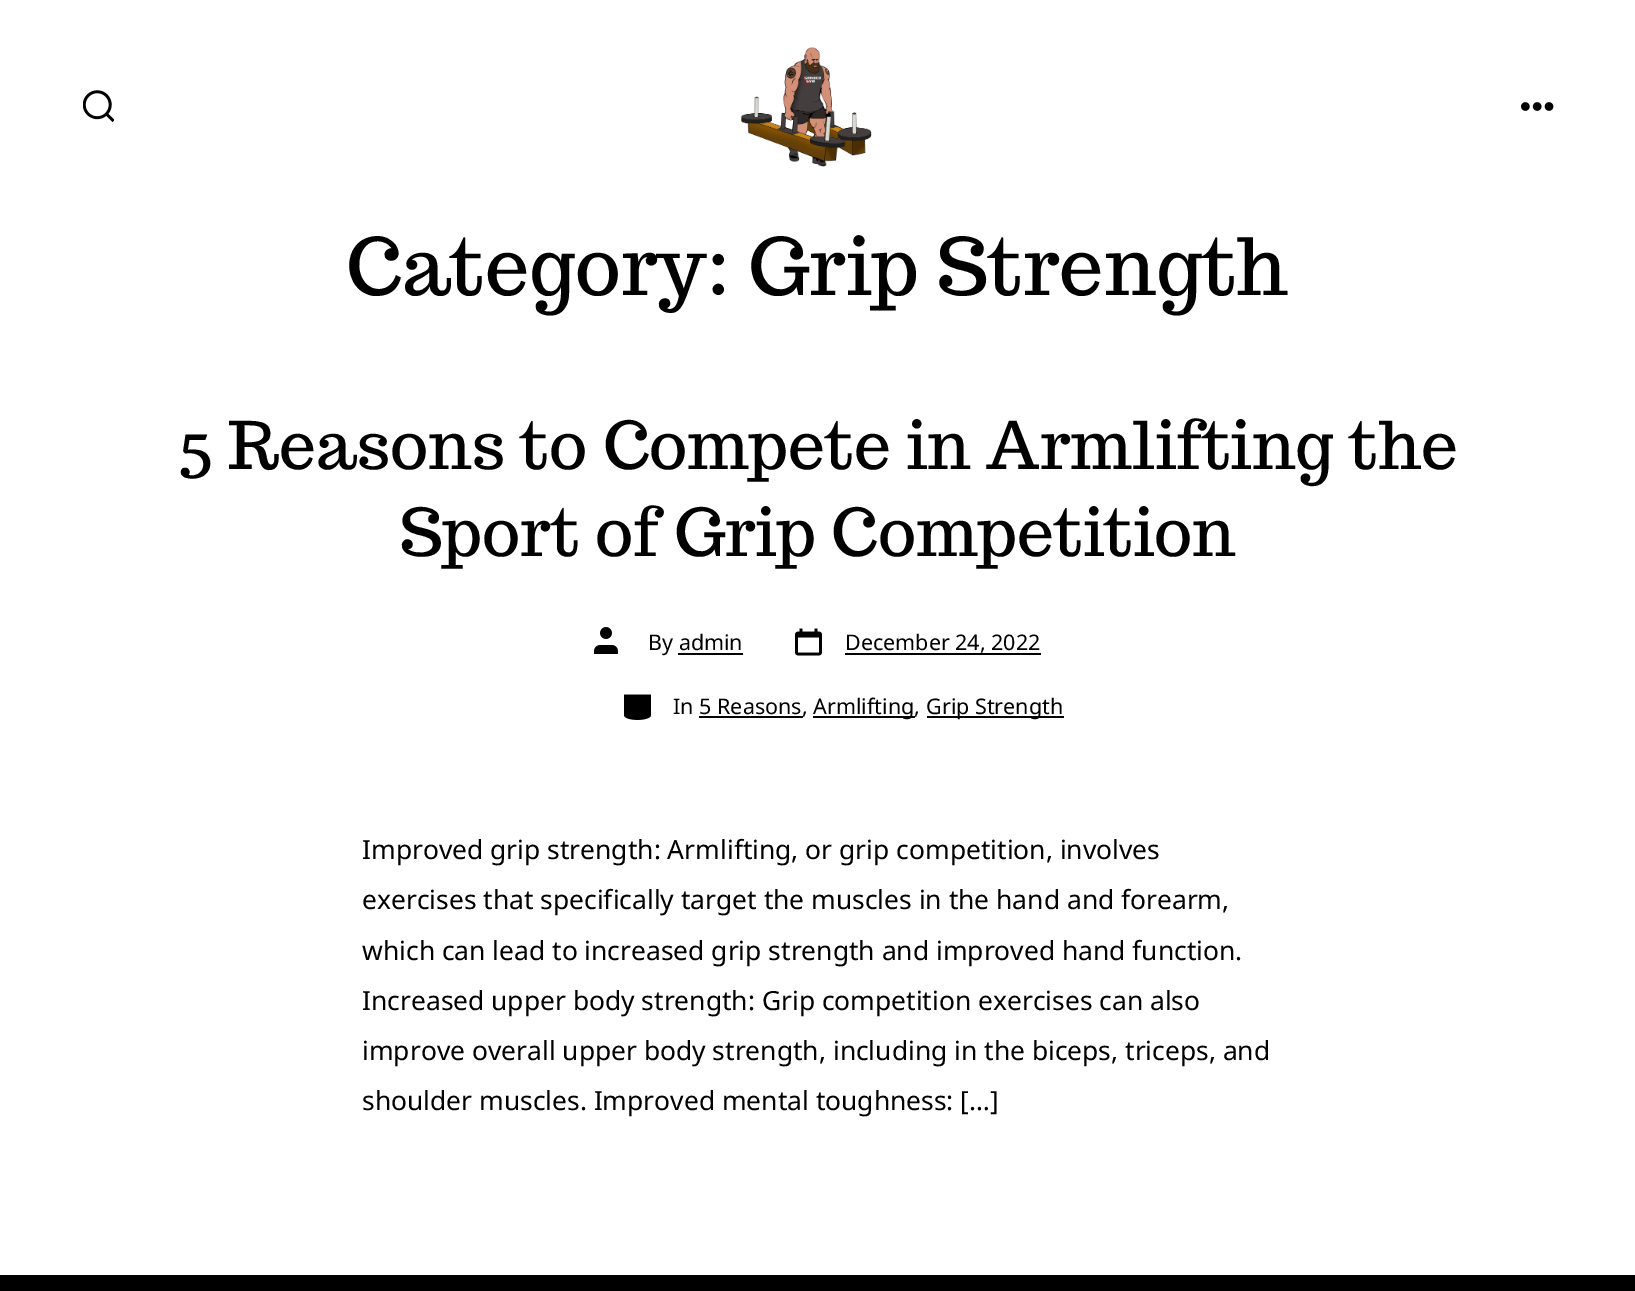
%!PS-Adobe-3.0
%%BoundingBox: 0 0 1635 1291
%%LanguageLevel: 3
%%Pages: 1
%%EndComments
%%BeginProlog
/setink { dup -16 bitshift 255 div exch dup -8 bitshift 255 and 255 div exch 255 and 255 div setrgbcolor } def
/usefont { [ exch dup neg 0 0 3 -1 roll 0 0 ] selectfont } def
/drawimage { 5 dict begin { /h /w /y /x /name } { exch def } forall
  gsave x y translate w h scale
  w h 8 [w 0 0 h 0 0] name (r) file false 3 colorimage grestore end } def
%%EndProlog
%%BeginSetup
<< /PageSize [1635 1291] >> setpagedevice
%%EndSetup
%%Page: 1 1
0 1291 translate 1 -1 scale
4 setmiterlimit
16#FFFFFF setink
0 0 1635 1291 rectfill
(img1.raw) 83 90 31 32 drawimage
(img2.raw) 741 47 131 120 drawimage
(img3.raw) 1521 102 33 9 drawimage
/Trocchi-Regular 78.75 usefont
16#000000 setink
346 295 moveto (Category: Grip Strength) show
/Trocchi-Regular 65.7 usefont
178 469 moveto (5 Reasons to Compete in Armlifting the) show
400 556 moveto (Sport of Grip Competition) show
(img4.raw) 594 627 24 27 drawimage
/NotoSans-Regular 21.5 usefont
648 650 moveto (By admin) show
678 653 65 2 rectfill
(img5.raw) 795 628 27 28 drawimage
845 650 moveto (December 24, 2022) show
845 653 196 2 rectfill
(img6.raw) 624 694 27 26 drawimage
673 714 moveto (In 5 Reasons) show
699 716 104 2 rectfill
802 714 moveto (,) show
813 716 102 2 rectfill
813 714 moveto (Armlifting,) show
927 716 137 2 rectfill
926 714 moveto (Grip Strength) show
/NotoSans-Regular 26.4 usefont
[
    [(Improved grip strength: Armlifting, or grip competition, involves) 362 859]
    [(exercises that specifically target the muscles in the hand and forearm,) 362 909]
    [(which can lead to increased grip strength and improved hand function.) 362 960]
    [(Increased upper body strength: Grip competition exercises can also) 362 1010]
    [(improve overall upper body strength, including in the biceps, triceps, and) 362 1060]
    [(shoulder muscles. Improved mental toughness: […]) 362 1110]
] { aload pop moveto show } forall
0 1275 1635 16 rectfill
showpage
%%EOF
